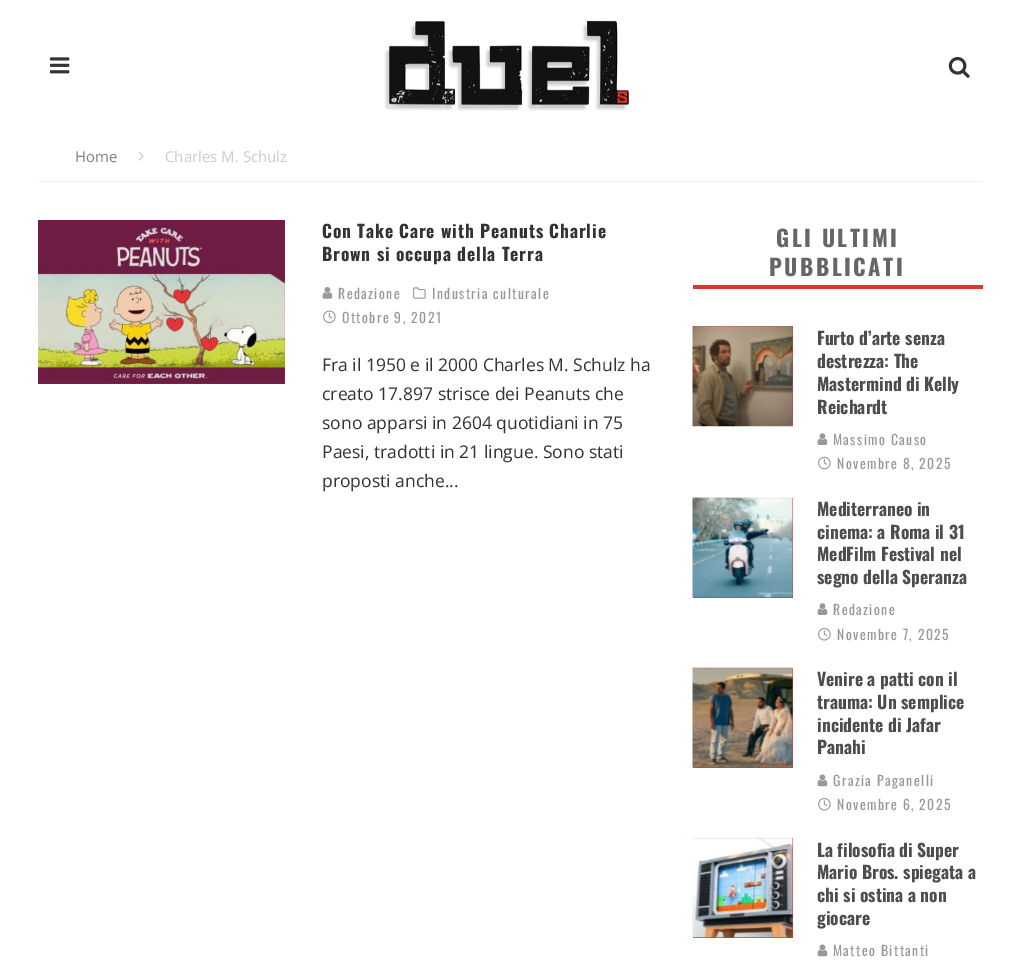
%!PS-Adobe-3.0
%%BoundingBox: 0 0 1020 967
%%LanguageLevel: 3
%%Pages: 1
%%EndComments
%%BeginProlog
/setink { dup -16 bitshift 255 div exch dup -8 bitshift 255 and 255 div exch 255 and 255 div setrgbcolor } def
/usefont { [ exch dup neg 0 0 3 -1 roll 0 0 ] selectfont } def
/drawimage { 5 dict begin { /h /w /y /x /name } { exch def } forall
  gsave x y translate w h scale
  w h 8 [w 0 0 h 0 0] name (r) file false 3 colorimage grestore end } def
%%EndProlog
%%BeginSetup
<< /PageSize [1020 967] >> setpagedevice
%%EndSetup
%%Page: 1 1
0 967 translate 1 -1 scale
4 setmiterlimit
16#FFFFFF setink
0 0 1020 967 rectfill
(img1.raw) 50 57 20 17 drawimage
(img2.raw) 384 20 245 91 drawimage
(img3.raw) 948 57 22 21 drawimage
16#F3F3F3 setink
38 181 945 1 rectfill
/OpenSans-Regular 15 usefont
16#808080 setink
75 162 moveto (Home) show
(img4.raw) 138 152 6 9 drawimage
16#CCCCCC setink
165 162 moveto (Charles M. Schulz) show
(img5.raw) 38 220 247 164 drawimage
/Oswald-Bold 17.5 usefont
16#333333 setink
322 238 moveto 0.9 0 (Con Take Care with Peanuts Charlie) ashow
322 261 moveto 0.9 0 (Brown si occupa della Terra) ashow
(img6.raw) 322 287 11 12 drawimage
/Oswald-Regular 13.75 usefont
16#999999 setink
338 299 moveto 1.4 0 (Redazione) ashow
(img7.raw) 413 287 13 12 drawimage
432 299 moveto 1.4 0 (Industria culturale) ashow
(img8.raw) 323 310 13 14 drawimage
342 323 moveto 1.4 0 (Ottobre 9, 2021) ashow
/OpenSans-Regular 17.5 usefont
16#333333 setink
[
    [(Fra il 1950 e il 2000 Charles M. Schulz ha) 322 371]
    [(creato 17.897 strisce dei Peanuts che) 322 400]
    [(sono apparsi in 2604 quotidiani in 75) 322 429]
    [(Paesi, tradotti in 21 lingue. Sono stati) 322 458]
    [(proposti anche...) 322 487]
] { aload pop moveto show } forall
16#DD3333 setink
693 285 290 4 rectfill
/Oswald-Bold 22.5 usefont
16#666666 setink
776 247 moveto 2.5 0 (GLI ULTIMI) ashow
769 276 moveto 2.5 0 (PUBBLICATI) ashow
16#DD3333 setink
693 326 100 100 rectfill
(img9.raw) 692 326 101 101 drawimage
/Oswald-Bold 17.5 usefont
16#4D4D4D setink
[
    [(Furto d’arte senza) 817 345]
    [(destrezza: The) 817 368]
    [(Mastermind di Kelly) 817 391]
    [(Reichardt) 817 414]
] { aload pop moveto show } forall
(img10.raw) 817 433 11 12 drawimage
/Oswald-Regular 13.75 usefont
16#999999 setink
833 445 moveto 1.4 0 (Massimo Causo) ashow
(img11.raw) 818 456 13 14 drawimage
837 469 moveto 1.4 0 (Novembre 8, 2025) ashow
16#DD3333 setink
693 498 100 100 rectfill
(img12.raw) 692 497 101 101 drawimage
/Oswald-Bold 17.5 usefont
16#4D4D4D setink
[
    [(Mediterraneo in) 817 516]
    [(cinema: a Roma il 31) 817 539]
    [(MedFilm Festival nel) 817 561]
    [(segno della Speranza) 817 584]
] { aload pop moveto show } forall
(img10.raw) 817 603 11 12 drawimage
/Oswald-Regular 13.75 usefont
16#999999 setink
833 615 moveto 1.4 0 (Redazione) ashow
(img13.raw) 818 628 13 13 drawimage
837 640 moveto 1.4 0 (Novembre 7, 2025) ashow
16#DD3333 setink
693 668 100 100 rectfill
(img14.raw) 692 667 101 101 drawimage
/Oswald-Bold 17.5 usefont
16#4D4D4D setink
[
    [(Venire a patti con il) 817 686]
    [(trauma: Un semplice) 817 709]
    [(incidente di Jafar) 817 732]
    [(Panahi) 817 754]
] { aload pop moveto show } forall
(img15.raw) 817 774 11 13 drawimage
/Oswald-Regular 13.75 usefont
16#999999 setink
833 786 moveto 1.4 0 (Grazia Paganelli) ashow
(img13.raw) 818 798 13 13 drawimage
837 810 moveto 1.4 0 (Novembre 6, 2025) ashow
16#DD3333 setink
693 838 100 100 rectfill
(img16.raw) 692 837 101 101 drawimage
/Oswald-Bold 17.5 usefont
16#4D4D4D setink
[
    [(La filosofia di Super) 817 857]
    [(Mario Bros. spiegata a) 817 879]
    [(chi si ostina a non) 817 902]
    [(giocare) 817 925]
] { aload pop moveto show } forall
(img15.raw) 817 944 11 13 drawimage
/Oswald-Regular 13.75 usefont
16#999999 setink
833 956 moveto 1.4 0 (Matteo Bittanti) ashow
showpage
%%EOF
